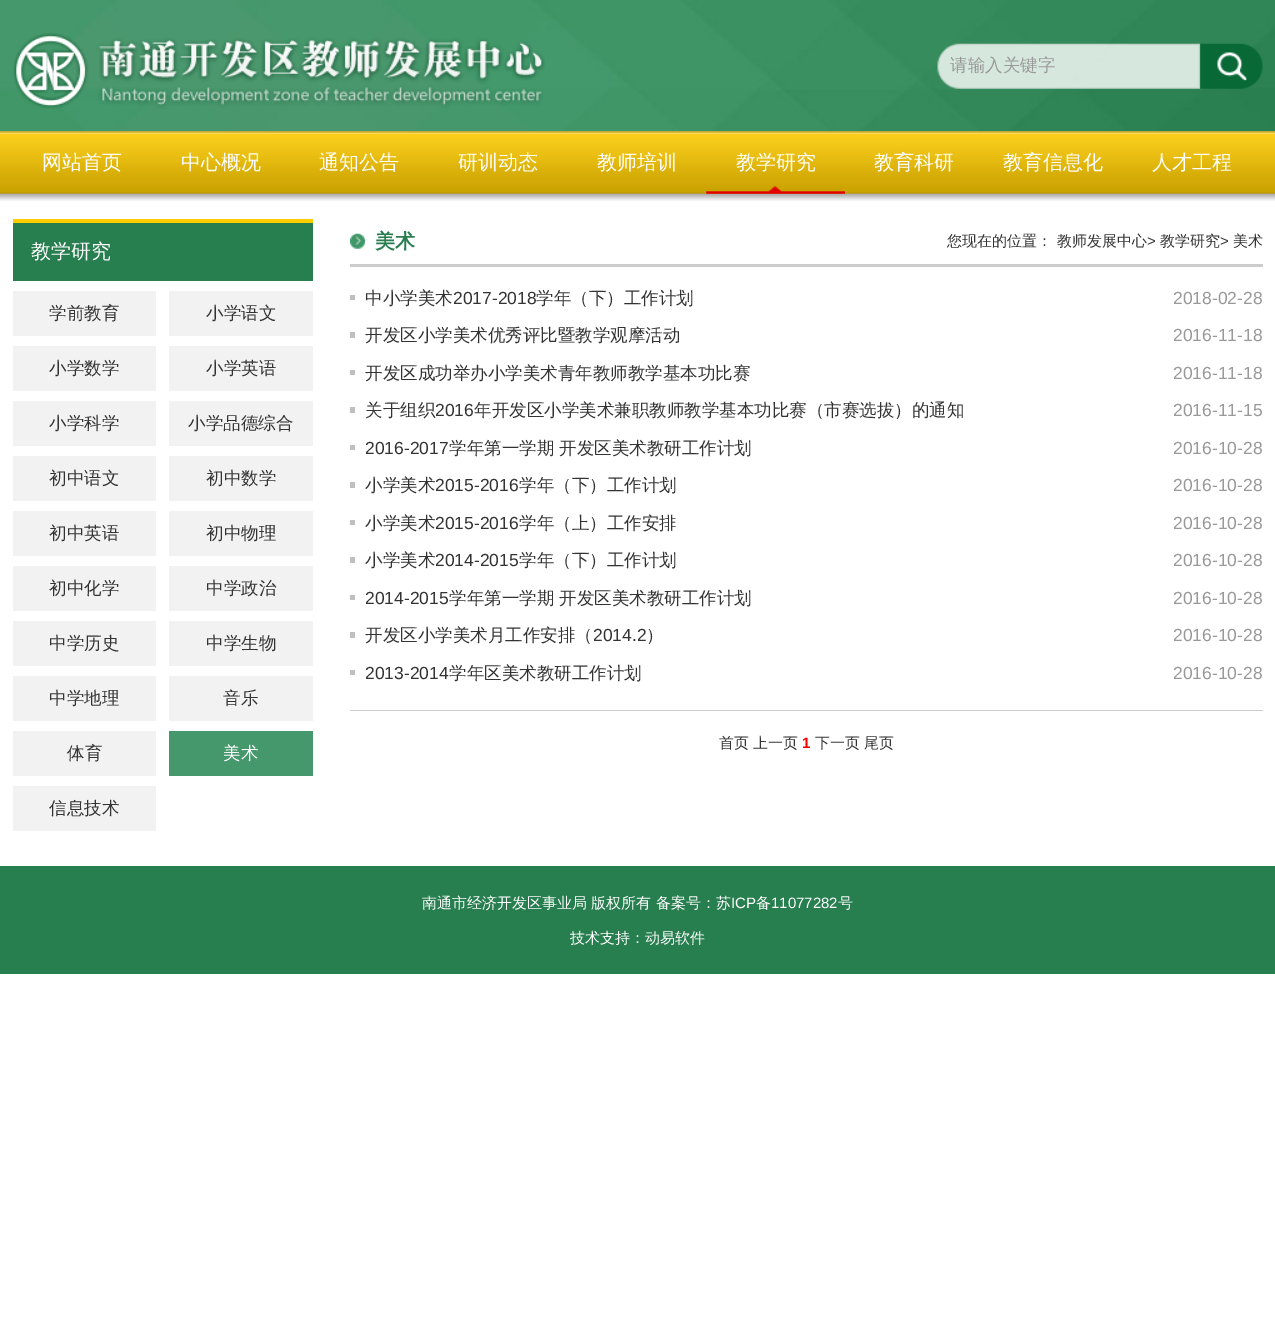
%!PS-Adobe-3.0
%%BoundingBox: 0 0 1275 1334
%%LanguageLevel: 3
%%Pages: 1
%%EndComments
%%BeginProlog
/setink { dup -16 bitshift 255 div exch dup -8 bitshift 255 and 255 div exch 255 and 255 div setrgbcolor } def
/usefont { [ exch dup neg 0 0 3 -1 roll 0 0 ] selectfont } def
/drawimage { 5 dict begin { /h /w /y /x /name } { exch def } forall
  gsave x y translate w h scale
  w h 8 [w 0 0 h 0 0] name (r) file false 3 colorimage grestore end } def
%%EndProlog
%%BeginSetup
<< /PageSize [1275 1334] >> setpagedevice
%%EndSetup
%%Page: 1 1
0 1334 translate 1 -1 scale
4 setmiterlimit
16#FFFFFF setink
0 0 1275 1334 rectfill
(img1.raw) 0 0 1275 132 drawimage
(img2.raw) 13 33 532 76 drawimage
(img3.raw) 937 43 326 46 drawimage
/WenQuanYiZenHei-Medium 17.5 usefont
16#999999 setink
950 71 moveto (请输入关键字) show
(img4.raw) 0 131 1275 70 drawimage
/WenQuanYiZenHei-Medium 20 usefont
16#FFFFFF setink
[
    [(网站首页) 42 169]
    [(中心概况) 181 169]
    [(通知公告) 319 169]
    [(研训动态) 458 169]
    [(教师培训) 597 169]
] { aload pop moveto show } forall
(img5.raw) 706 186 139 8 drawimage
[
    [(教学研究) 736 169]
    [(教育科研) 874 169]
    [(教育信息化) 1003 169]
    [(人才工程) 1152 169]
] { aload pop moveto show } forall
16#277E4F setink
13 223 300 58 rectfill
16#FFCC00 setink
13 219 300 4 rectfill
16#FFFFFF setink
31 258 moveto (教学研究) show
16#F2F2F2 setink
13 291 143 45 rectfill
/WenQuanYiZenHei-Medium 17.5 usefont
16#333333 setink
49 319 moveto (学前教育) show
16#F2F2F2 setink
169 291 144 45 rectfill
16#333333 setink
206 319 moveto (小学语文) show
16#F2F2F2 setink
13 346 143 45 rectfill
16#333333 setink
49 374 moveto (小学数学) show
16#F2F2F2 setink
169 346 144 45 rectfill
16#333333 setink
206 374 moveto (小学英语) show
16#F2F2F2 setink
13 401 143 45 rectfill
16#333333 setink
49 429 moveto (小学科学) show
16#F2F2F2 setink
169 401 144 45 rectfill
16#333333 setink
188 429 moveto (小学品德综合) show
16#F2F2F2 setink
13 456 143 45 rectfill
16#333333 setink
49 484 moveto (初中语文) show
16#F2F2F2 setink
169 456 144 45 rectfill
16#333333 setink
206 484 moveto (初中数学) show
16#F2F2F2 setink
13 511 143 45 rectfill
16#333333 setink
49 539 moveto (初中英语) show
16#F2F2F2 setink
169 511 144 45 rectfill
16#333333 setink
206 539 moveto (初中物理) show
16#F2F2F2 setink
13 566 143 45 rectfill
16#333333 setink
49 594 moveto (初中化学) show
16#F2F2F2 setink
169 566 144 45 rectfill
16#333333 setink
206 594 moveto (中学政治) show
16#F2F2F2 setink
13 621 143 45 rectfill
16#333333 setink
49 649 moveto (中学历史) show
16#F2F2F2 setink
169 621 144 45 rectfill
16#333333 setink
206 649 moveto (中学生物) show
16#F2F2F2 setink
13 676 143 45 rectfill
16#333333 setink
49 704 moveto (中学地理) show
16#F2F2F2 setink
169 676 144 45 rectfill
16#333333 setink
223 704 moveto (音乐) show
16#F2F2F2 setink
13 731 143 45 rectfill
16#333333 setink
67 759 moveto (体育) show
16#44986B setink
169 731 144 45 rectfill
16#FFFFFF setink
223 759 moveto (美术) show
16#F2F2F2 setink
13 786 143 45 rectfill
16#333333 setink
49 814 moveto (信息技术) show
16#CCCCCC setink
350 264 913 3 rectfill
(img6.raw) 350 233 15 16 drawimage
/WenQuanYiZenHei-Bold 20 usefont
16#277E4F setink
375 248 moveto (美术) show
/WenQuanYiZenHei-Medium 15 usefont
16#333333 setink
947 246 moveto (您现在的位置：) show
1057 246 moveto (教师发展中心) show
/LiberationSans-Regular 15 usefont
1147 246 moveto (>) show
/WenQuanYiZenHei-Medium 15 usefont
1160 246 moveto (教学研究) show
/LiberationSans-Regular 15 usefont
1220 246 moveto (>) show
/WenQuanYiZenHei-Medium 15 usefont
1233 246 moveto (美术) show
16#BFBFBF setink
350 295 5 5 rectfill
/WenQuanYiZenHei-Medium 17.5 usefont
16#333333 setink
365 304 moveto (中小学美术) show
/LiberationSans-Regular 17.5 usefont
453 304 moveto (2017-2018) show
/WenQuanYiZenHei-Medium 17.5 usefont
536 304 moveto (学年（下）工作计划) show
/LiberationSans-Regular 17.5 usefont
16#999999 setink
1173 304 moveto (2018-02-28) show
16#BFBFBF setink
350 332 5 6 rectfill
/WenQuanYiZenHei-Medium 17.5 usefont
16#333333 setink
365 341 moveto (开发区小学美术优秀评比暨教学观摩活动) show
/LiberationSans-Regular 17.5 usefont
16#999999 setink
1173 341 moveto (2016-11-18) show
16#BFBFBF setink
350 370 5 5 rectfill
/WenQuanYiZenHei-Medium 17.5 usefont
16#333333 setink
365 379 moveto (开发区成功举办小学美术青年教师教学基本功比赛) show
/LiberationSans-Regular 17.5 usefont
16#999999 setink
1173 379 moveto (2016-11-18) show
16#BFBFBF setink
350 407 5 6 rectfill
/WenQuanYiZenHei-Medium 17.5 usefont
16#333333 setink
365 416 moveto (关于组织) show
/LiberationSans-Regular 17.5 usefont
435 416 moveto (2016) show
/WenQuanYiZenHei-Medium 17.5 usefont
474 416 moveto (年开发区小学美术兼职教师教学基本功比赛（市赛选拔）的通知) show
/LiberationSans-Regular 17.5 usefont
16#999999 setink
1173 416 moveto (2016-11-15) show
16#BFBFBF setink
350 445 5 5 rectfill
16#333333 setink
365 454 moveto (2016-2017) show
/WenQuanYiZenHei-Medium 17.5 usefont
449 454 moveto (学年第一学期 开发区美术教研工作计划) show
/LiberationSans-Regular 17.5 usefont
16#999999 setink
1173 454 moveto (2016-10-28) show
16#BFBFBF setink
350 482 5 6 rectfill
/WenQuanYiZenHei-Medium 17.5 usefont
16#333333 setink
365 491 moveto (小学美术) show
/LiberationSans-Regular 17.5 usefont
435 491 moveto (2015-2016) show
/WenQuanYiZenHei-Medium 17.5 usefont
519 491 moveto (学年（下）工作计划) show
/LiberationSans-Regular 17.5 usefont
16#999999 setink
1173 491 moveto (2016-10-28) show
16#BFBFBF setink
350 520 5 5 rectfill
/WenQuanYiZenHei-Medium 17.5 usefont
16#333333 setink
365 529 moveto (小学美术) show
/LiberationSans-Regular 17.5 usefont
435 529 moveto (2015-2016) show
/WenQuanYiZenHei-Medium 17.5 usefont
519 529 moveto (学年（上）工作安排) show
/LiberationSans-Regular 17.5 usefont
16#999999 setink
1173 529 moveto (2016-10-28) show
16#BFBFBF setink
350 557 5 6 rectfill
/WenQuanYiZenHei-Medium 17.5 usefont
16#333333 setink
365 566 moveto (小学美术) show
/LiberationSans-Regular 17.5 usefont
435 566 moveto (2014-2015) show
/WenQuanYiZenHei-Medium 17.5 usefont
519 566 moveto (学年（下）工作计划) show
/LiberationSans-Regular 17.5 usefont
16#999999 setink
1173 566 moveto (2016-10-28) show
16#BFBFBF setink
350 595 5 5 rectfill
16#333333 setink
365 604 moveto (2014-2015) show
/WenQuanYiZenHei-Medium 17.5 usefont
449 604 moveto (学年第一学期 开发区美术教研工作计划) show
/LiberationSans-Regular 17.5 usefont
16#999999 setink
1173 604 moveto (2016-10-28) show
16#BFBFBF setink
350 632 5 6 rectfill
/WenQuanYiZenHei-Medium 17.5 usefont
16#333333 setink
365 641 moveto (开发区小学美术月工作安排（) show
/LiberationSans-Regular 17.5 usefont
593 641 moveto (2014.2) show
/WenQuanYiZenHei-Medium 17.5 usefont
646 641 moveto (）) show
/LiberationSans-Regular 17.5 usefont
16#999999 setink
1173 641 moveto (2016-10-28) show
16#BFBFBF setink
350 670 5 5 rectfill
16#333333 setink
365 679 moveto (2013-2014) show
/WenQuanYiZenHei-Medium 17.5 usefont
449 679 moveto (学年区美术教研工作计划) show
/LiberationSans-Regular 17.5 usefont
16#999999 setink
1173 679 moveto (2016-10-28) show
16#CCCCCC setink
350 710 913 1 rectfill
/WenQuanYiZenHei-Medium 15 usefont
16#333333 setink
719 748 moveto (首页) show
753 748 moveto (上一页) show
/LiberationSans-Bold 15 usefont
16#FF0000 setink
802 748 moveto (1) show
/WenQuanYiZenHei-Medium 15 usefont
16#333333 setink
815 748 moveto (下一页) show
864 748 moveto (尾页) show
16#277E4F setink
0 866 1275 108 rectfill
16#FFFFFF setink
422 908 moveto (南通市经济开发区事业局 版权所有 备案号：苏) show
/LiberationSans-Regular 15 usefont
731 908 moveto (ICP) show
/WenQuanYiZenHei-Medium 15 usefont
756 908 moveto (备) show
/LiberationSans-Regular 15 usefont
771 908 moveto (11077282) show
/WenQuanYiZenHei-Medium 15 usefont
838 908 moveto (号) show
570 943 moveto (技术支持：动易软件) show
showpage
%%EOF
